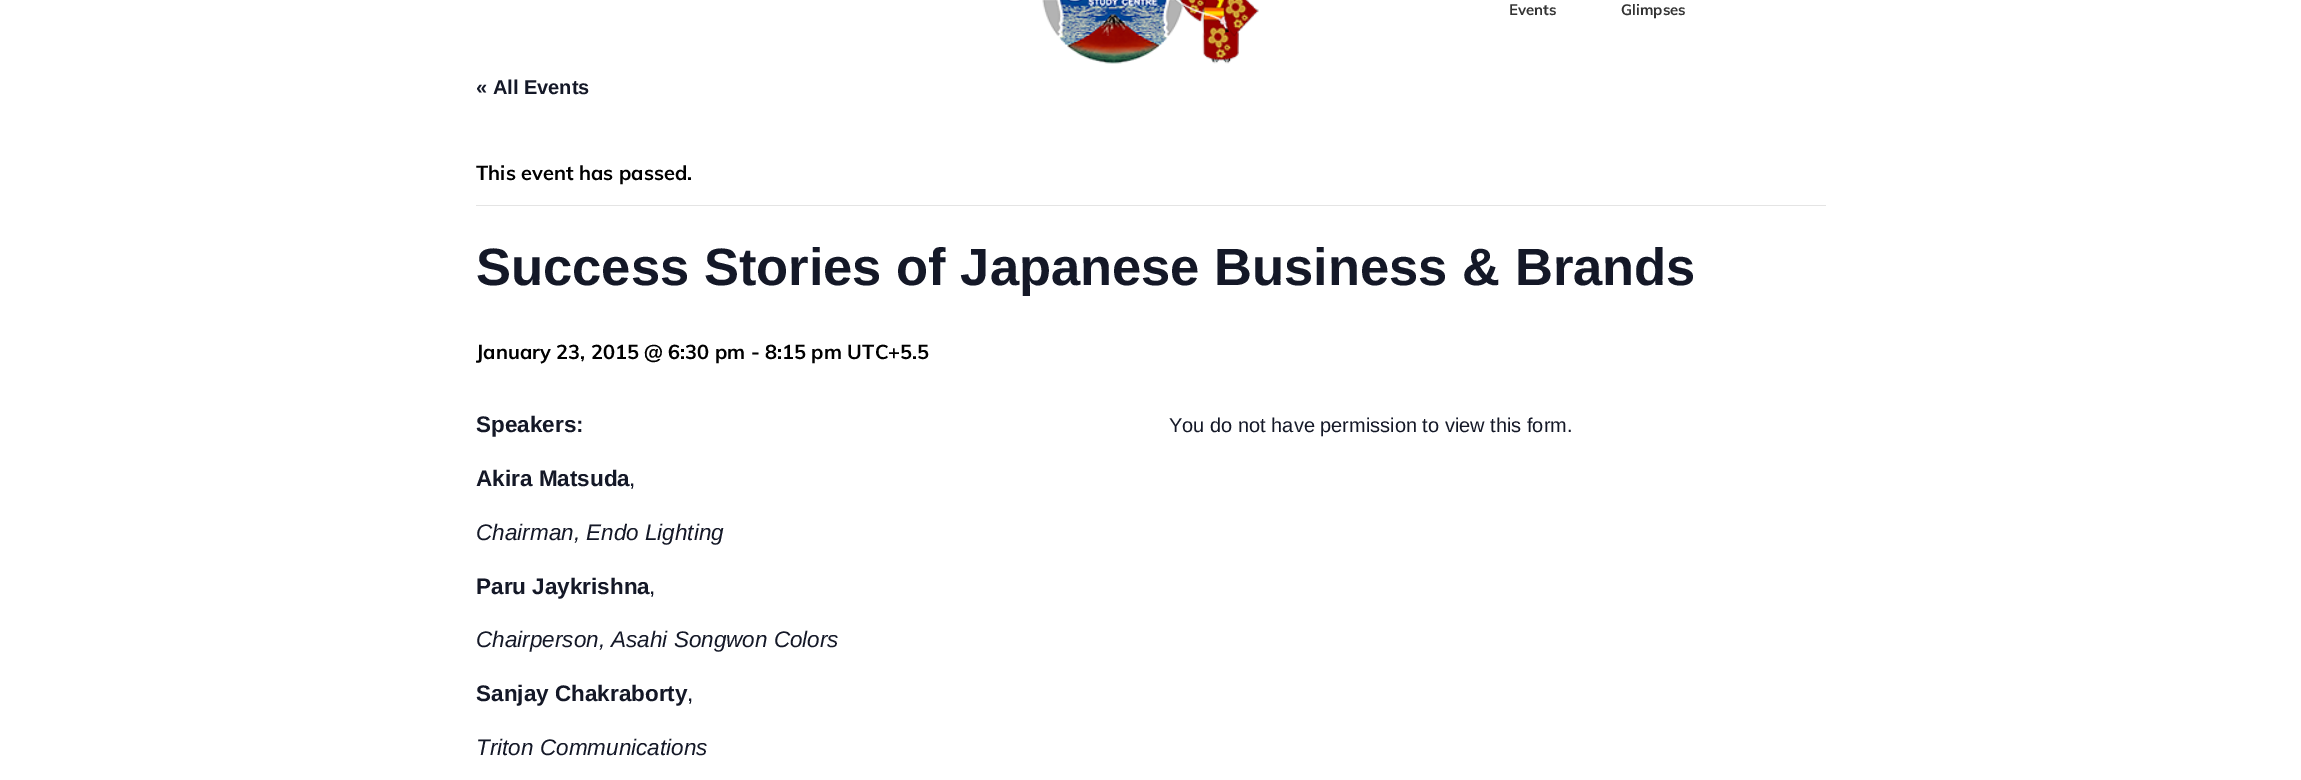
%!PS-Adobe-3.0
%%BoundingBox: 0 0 2301 780
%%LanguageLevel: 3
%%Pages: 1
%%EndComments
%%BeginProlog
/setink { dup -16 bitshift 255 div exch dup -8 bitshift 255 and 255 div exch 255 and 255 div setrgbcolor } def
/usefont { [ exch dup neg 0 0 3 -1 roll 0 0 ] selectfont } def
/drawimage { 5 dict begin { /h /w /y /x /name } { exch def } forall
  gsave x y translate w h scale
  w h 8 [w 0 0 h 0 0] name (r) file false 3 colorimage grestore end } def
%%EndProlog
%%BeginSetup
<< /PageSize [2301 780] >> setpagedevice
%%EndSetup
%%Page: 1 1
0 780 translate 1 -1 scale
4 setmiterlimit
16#FFFFFF setink
0 0 2301 780 rectfill
(img1.raw) 1042 0 217 64 drawimage
/Muli-Bold 15 usefont
16#333333 setink
1509 15 moveto (Events) show
1621 15 moveto (Glimpses) show
/LiberationSans-Bold 20 usefont
16#141827 setink
476 94 moveto (« All Events) show
16#E4E4E4 setink
476 205 1350 1 rectfill
/Muli-Bold 20 usefont
16#000000 setink
476 180 moveto (This event has passed.) show
/LiberationSans-Bold 52.5 usefont
16#141827 setink
476 285 moveto (Success Stories of Japanese Business & Brands) show
/Muli-Bold 20 usefont
16#000000 setink
476 359 moveto (January 23, 2015 @ 6:30 pm - 8:15 pm UTC+5.5) show
/LiberationSans-Bold 22.5 usefont
16#141827 setink
476 432 moveto (Speakers:) show
476 486 moveto (Akira Matsuda) show
/LiberationSans-Regular 22.5 usefont
629 486 moveto (,) show
/LiberationSans-Italic 22.5 usefont
476 540 moveto (Chairman, Endo Lighting) show
/LiberationSans-Bold 22.5 usefont
476 594 moveto (Paru Jaykrishna) show
/LiberationSans-Regular 22.5 usefont
649 594 moveto (,) show
/LiberationSans-Italic 22.5 usefont
476 647 moveto (Chairperson, Asahi Songwon Colors) show
/LiberationSans-Bold 22.5 usefont
476 701 moveto (Sanjay Chakraborty) show
/LiberationSans-Regular 22.5 usefont
687 701 moveto (,) show
/LiberationSans-Italic 22.5 usefont
476 755 moveto (Triton Communications) show
/LiberationSans-Regular 20 usefont
1169 432 moveto (You do not have permission to view this form.) show
showpage
%%EOF
